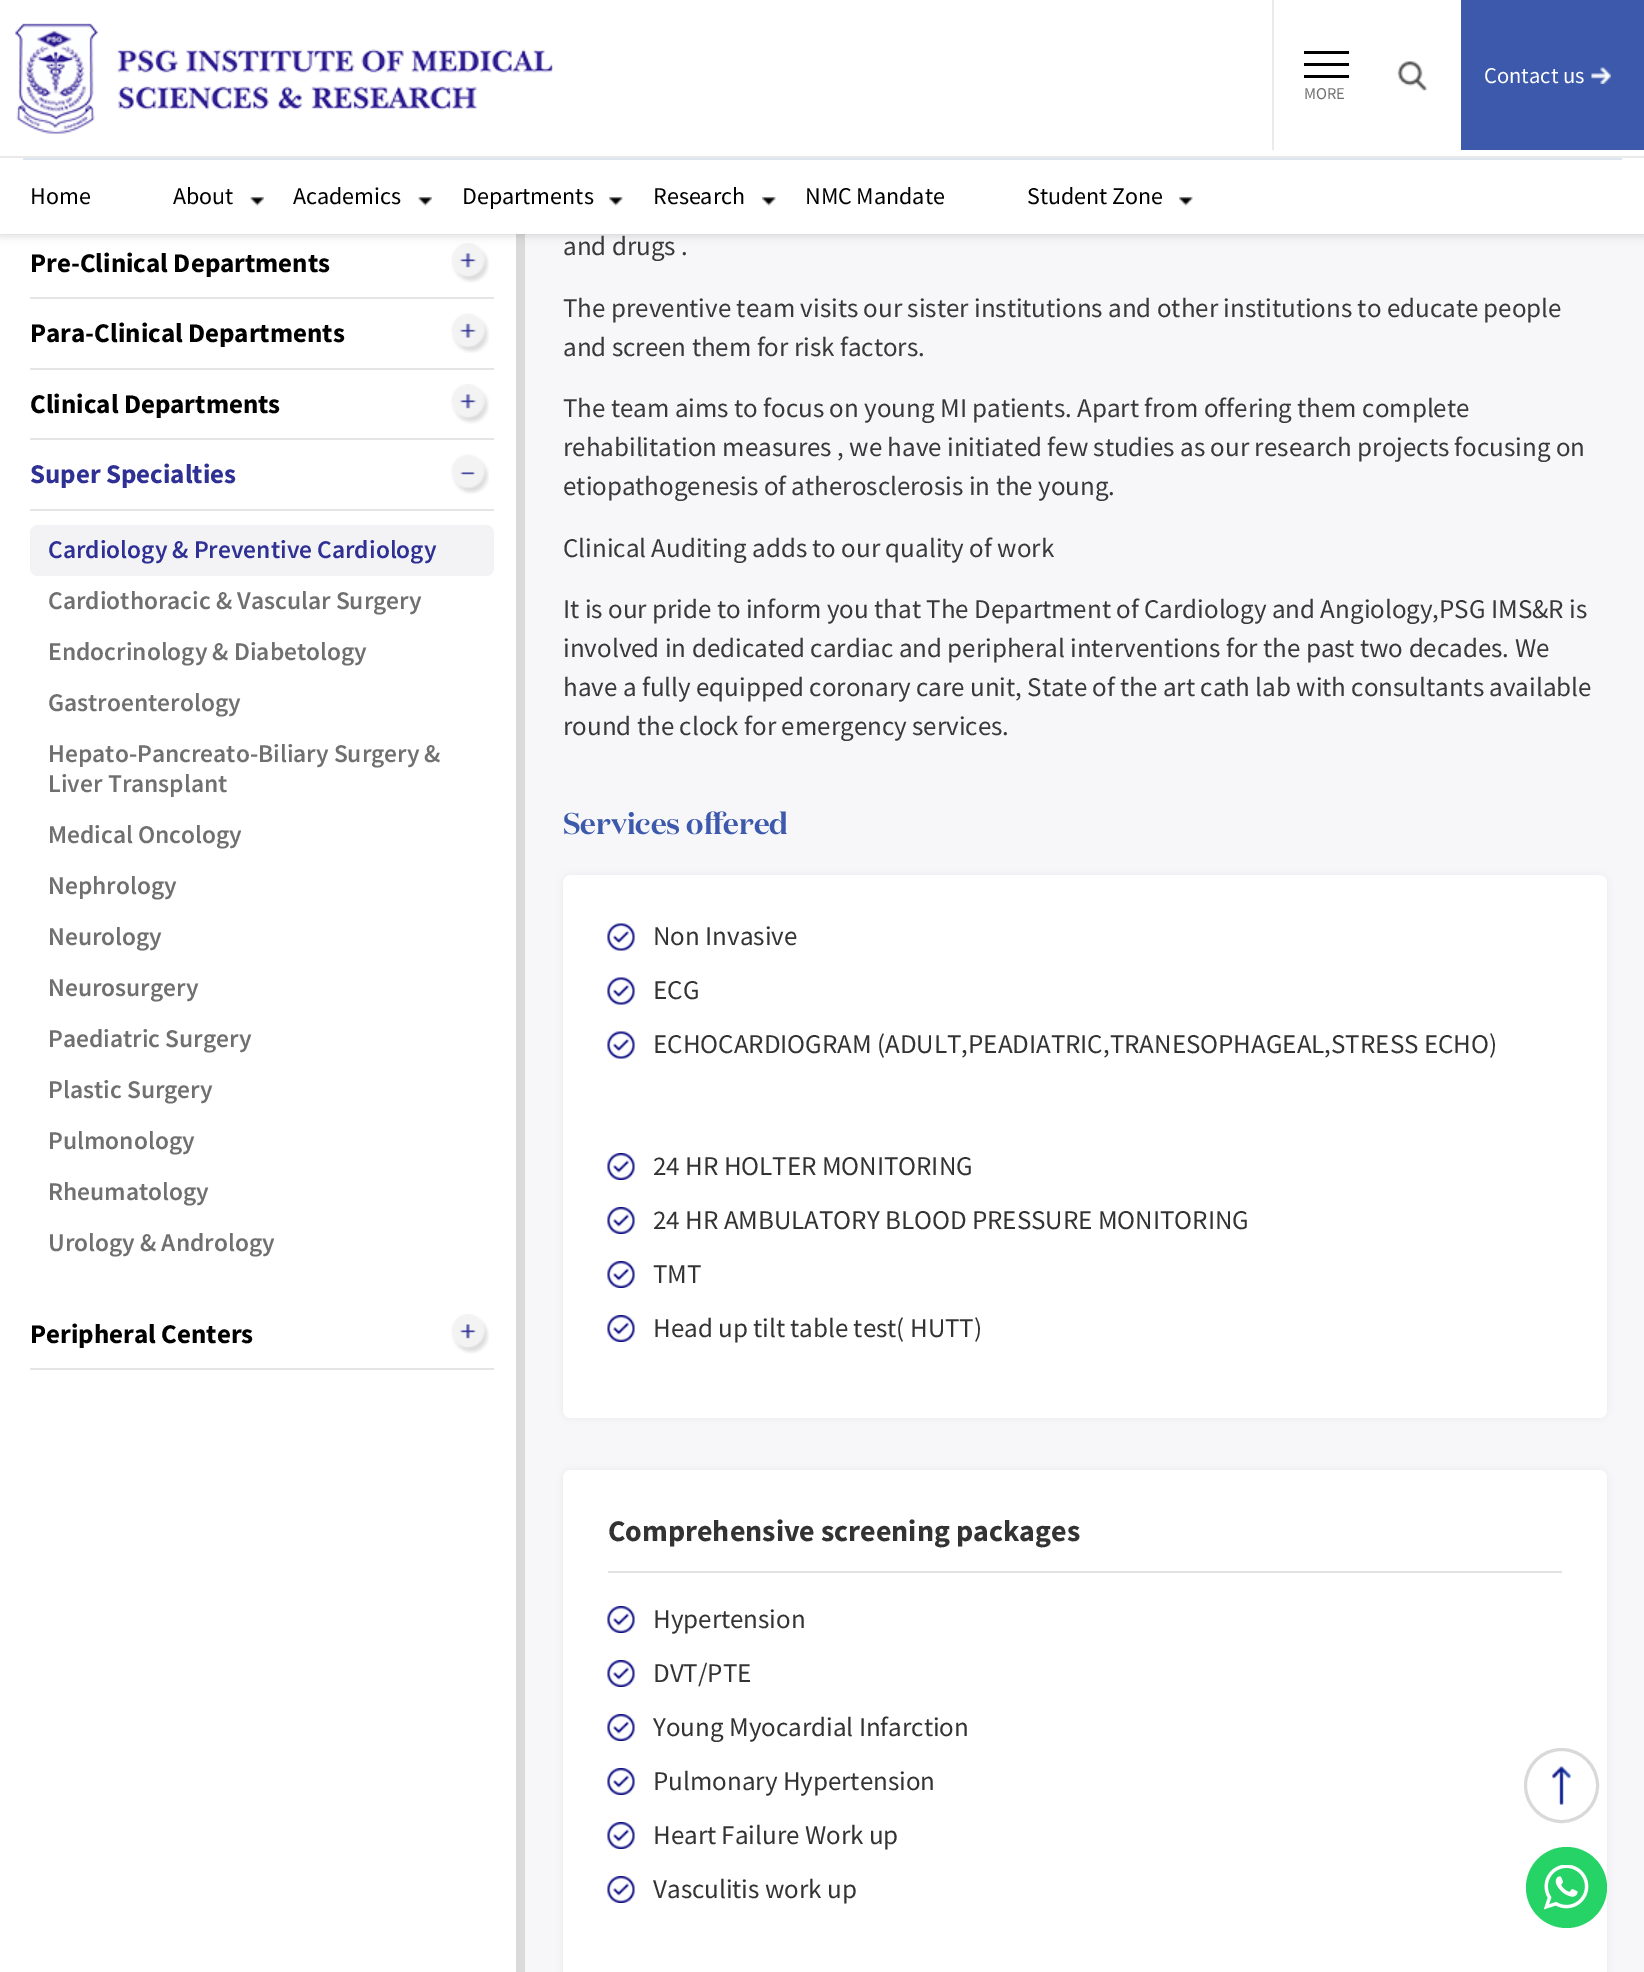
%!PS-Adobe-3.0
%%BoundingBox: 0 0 1644 1972
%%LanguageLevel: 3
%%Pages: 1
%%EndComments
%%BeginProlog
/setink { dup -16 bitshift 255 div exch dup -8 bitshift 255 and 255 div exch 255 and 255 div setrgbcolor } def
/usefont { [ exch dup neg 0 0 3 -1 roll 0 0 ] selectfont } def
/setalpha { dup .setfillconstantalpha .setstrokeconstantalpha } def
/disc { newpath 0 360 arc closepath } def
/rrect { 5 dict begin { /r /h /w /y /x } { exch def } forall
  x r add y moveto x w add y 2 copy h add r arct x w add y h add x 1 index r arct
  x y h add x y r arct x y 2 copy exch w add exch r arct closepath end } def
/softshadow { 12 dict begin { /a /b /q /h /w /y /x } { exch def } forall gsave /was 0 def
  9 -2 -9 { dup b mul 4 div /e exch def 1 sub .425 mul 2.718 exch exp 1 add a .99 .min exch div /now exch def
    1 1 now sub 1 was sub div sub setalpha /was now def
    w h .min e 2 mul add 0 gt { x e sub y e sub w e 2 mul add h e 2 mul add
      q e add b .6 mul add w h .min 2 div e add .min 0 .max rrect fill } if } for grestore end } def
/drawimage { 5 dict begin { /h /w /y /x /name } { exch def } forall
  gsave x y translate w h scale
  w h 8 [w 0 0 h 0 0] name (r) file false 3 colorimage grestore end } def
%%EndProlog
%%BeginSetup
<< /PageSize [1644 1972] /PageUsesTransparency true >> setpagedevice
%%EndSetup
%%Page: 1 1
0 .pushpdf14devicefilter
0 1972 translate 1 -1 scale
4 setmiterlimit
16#F7F7FA setink
0 0 1644 1972 rectfill
16#FFFFFF setink
0 234 516 1738 rectfill
(img6.raw) 451 243 38 40 drawimage
16#DADADA setink
516 234 9 1738 rectfill
16#000000 setink
0 0 1644 234 0 5 0.2 softshadow
16#FFFFFF setink
0 0 1644 234 rectfill
(img1.raw) 15 23 538 111 drawimage
(img2.raw) 1397 61 30 30 drawimage
16#3D59AB setink
1461 0 183 150 rectfill
/SourceSansPro-Regular 22.5 usefont
16#FFFFFF setink
1484 83 moveto (Contact us) show
(img3.raw) 1591 67 20 17 drawimage
[
    [1272 0 2 150 16#EAEAEA]
    [1304 51 45 3 16#000000]
    [1304 63 45 3 16#000000]
    [1304 75 45 3 16#000000]
] { aload pop setink rectfill } forall
/SourceSansPro-Regular 16.5 usefont
16#707070 setink
1304 99 moveto (MORE) show
16#EAEAEA setink
0 156 1644 2 rectfill
16#DDE6F0 setink
23 158 1599 2 rectfill
/SourceSansPro-Regular 24 usefont
16#000000 setink
30 204 moveto (Home) show
173 204 moveto (About) show
(img4.raw) 250 197 14 9 drawimage
293 204 moveto (Academics) show
(img4.raw) 418 197 14 9 drawimage
462 204 moveto (Departments) show
(img5.raw) 609 197 14 9 drawimage
653 204 moveto (Research) show
(img5.raw) 762 197 14 9 drawimage
805 204 moveto (NMC Mandate) show
1027 204 moveto (Student Zone) show
(img5.raw) 1179 197 14 9 drawimage
16#E5E5E5 setink
30 297 464 2 rectfill
/SourceSansPro-Bold 27 usefont
16#000000 setink
30 272 moveto (Pre-Clinical Departments) show
16#E5E5E5 setink
30 368 464 2 rectfill
16#000000 setink
30 342 moveto (Para-Clinical Departments) show
(img7.raw) 451 313 38 40 drawimage
16#E5E5E5 setink
30 438 464 2 rectfill
16#000000 setink
30 413 moveto (Clinical Departments) show
(img6.raw) 451 384 38 40 drawimage
16#E5E5E5 setink
30 509 464 2 rectfill
16#2E3094 setink
30 483 moveto (Super Specialties) show
(img8.raw) 451 454 38 40 drawimage
16#F3F3F6 setink
30 525 464 51 8 rrect fill
/SourceSansPro-SemiBold 25.5 usefont
16#2E3094 setink
48 558 moveto (Cardiology & Preventive Cardiology) show
16#707070 setink
[
    [(Cardiothoracic & Vascular Surgery) 48 609]
    [(Endocrinology & Diabetology) 48 660]
    [(Gastroenterology) 48 711]
    [(Hepato-Pancreato-Biliary Surgery &) 48 762]
    [(Liver Transplant) 48 792]
    [(Medical Oncology) 48 843]
    [(Nephrology) 48 894]
    [(Neurology) 48 945]
    [(Neurosurgery) 48 996]
    [(Paediatric Surgery) 48 1047]
    [(Plastic Surgery) 48 1098]
    [(Pulmonology) 48 1149]
    [(Rheumatology) 48 1200]
    [(Urology & Andrology) 48 1251]
] { aload pop moveto show } forall
16#E5E5E5 setink
30 1368 464 2 rectfill
/SourceSansPro-Bold 27 usefont
16#000000 setink
30 1343 moveto (Peripheral Centers) show
(img9.raw) 451 1314 38 40 drawimage
/SourceSansPro-Regular 27 usefont
16#393939 setink
[
    [(and drugs .) 563 255]
    [(The preventive team visits our sister institutions and other institutions to educate people) 563 317]
    [(and screen them for risk factors.) 563 356]
    [(The team aims to focus on young MI patients. Apart from offering them complete) 563 417]
    [(rehabilitation measures , we have initiated few studies as our research projects focusing on) 563 456]
    [(etiopathogenesis of atherosclerosis in the young.) 563 495]
    [(Clinical Auditing adds to our quality of work) 563 557]
    [(It is our pride to inform you that The Department of Cardiology and Angiology,PSG IMS&R is) 563 618]
    [(involved in dedicated cardiac and peripheral interventions for the past two decades. We) 563 657]
    [(have a fully equipped coronary care unit, State of the art cath lab with consultants available) 563 696]
    [(round the clock for emergency services.) 563 735]
] { aload pop moveto show } forall
/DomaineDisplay-SemiBold 30 usefont
16#3D59AB setink
563 834 moveto (Services offered) show
16#000000 setink
563 875 1044 543 8 4 0.05 softshadow
16#FFFFFF setink
563 875 1044 543 8 rrect fill
(img10.raw) 607 923 28 28 drawimage
/SourceSansPro-Regular 27 usefont
16#333333 setink
653 945 moveto (Non Invasive) show
(img10.raw) 607 977 28 28 drawimage
653 999 moveto (ECG) show
(img10.raw) 607 1031 28 28 drawimage
653 1053 moveto (ECHOCARDIOGRAM \(ADULT,PEADIATRIC,TRANESOPHAGEAL,STRESS ECHO\)) show
(img11.raw) 607 1153 28 27 drawimage
653 1175 moveto (24 HR HOLTER MONITORING) show
(img11.raw) 607 1207 28 27 drawimage
653 1229 moveto (24 HR AMBULATORY BLOOD PRESSURE MONITORING) show
(img11.raw) 607 1261 28 27 drawimage
653 1283 moveto (TMT) show
(img11.raw) 607 1315 28 27 drawimage
653 1337 moveto (Head up tilt table test\( HUTT\)) show
16#000000 setink
563 1470 1044 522 8 4 0.05 softshadow
16#FFFFFF setink
563 1470 1044 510 8 rrect fill
16#E2E2E2 setink
608 1571 954 2 rectfill
/SourceSansPro-Bold 30 usefont
16#333333 setink
608 1541 moveto (Comprehensive screening packages) show
(img11.raw) 607 1606 28 27 drawimage
/SourceSansPro-Regular 27 usefont
653 1628 moveto (Hypertension) show
(img11.raw) 607 1660 28 27 drawimage
653 1682 moveto (DVT/PTE) show
(img11.raw) 607 1714 28 27 drawimage
653 1736 moveto (Young Myocardial Infarction) show
(img11.raw) 607 1768 28 27 drawimage
653 1790 moveto (Pulmonary Hypertension) show
(img12.raw) 607 1822 28 27 drawimage
653 1844 moveto (Heart Failure Work up) show
(img11.raw) 607 1876 28 27 drawimage
653 1898 moveto (Vasculitis work up) show
(img13.raw) 1552 1766 19 39 drawimage
16#D9D9D9 setink
3 setlinewidth
1561.5 1785.5 36 disc stroke
16#25D366 setink
1566.5 1887.5 40.5 disc fill
(img14.raw) 1544 1865 45 45 drawimage
.poppdf14devicefilter showpage
%%EOF
